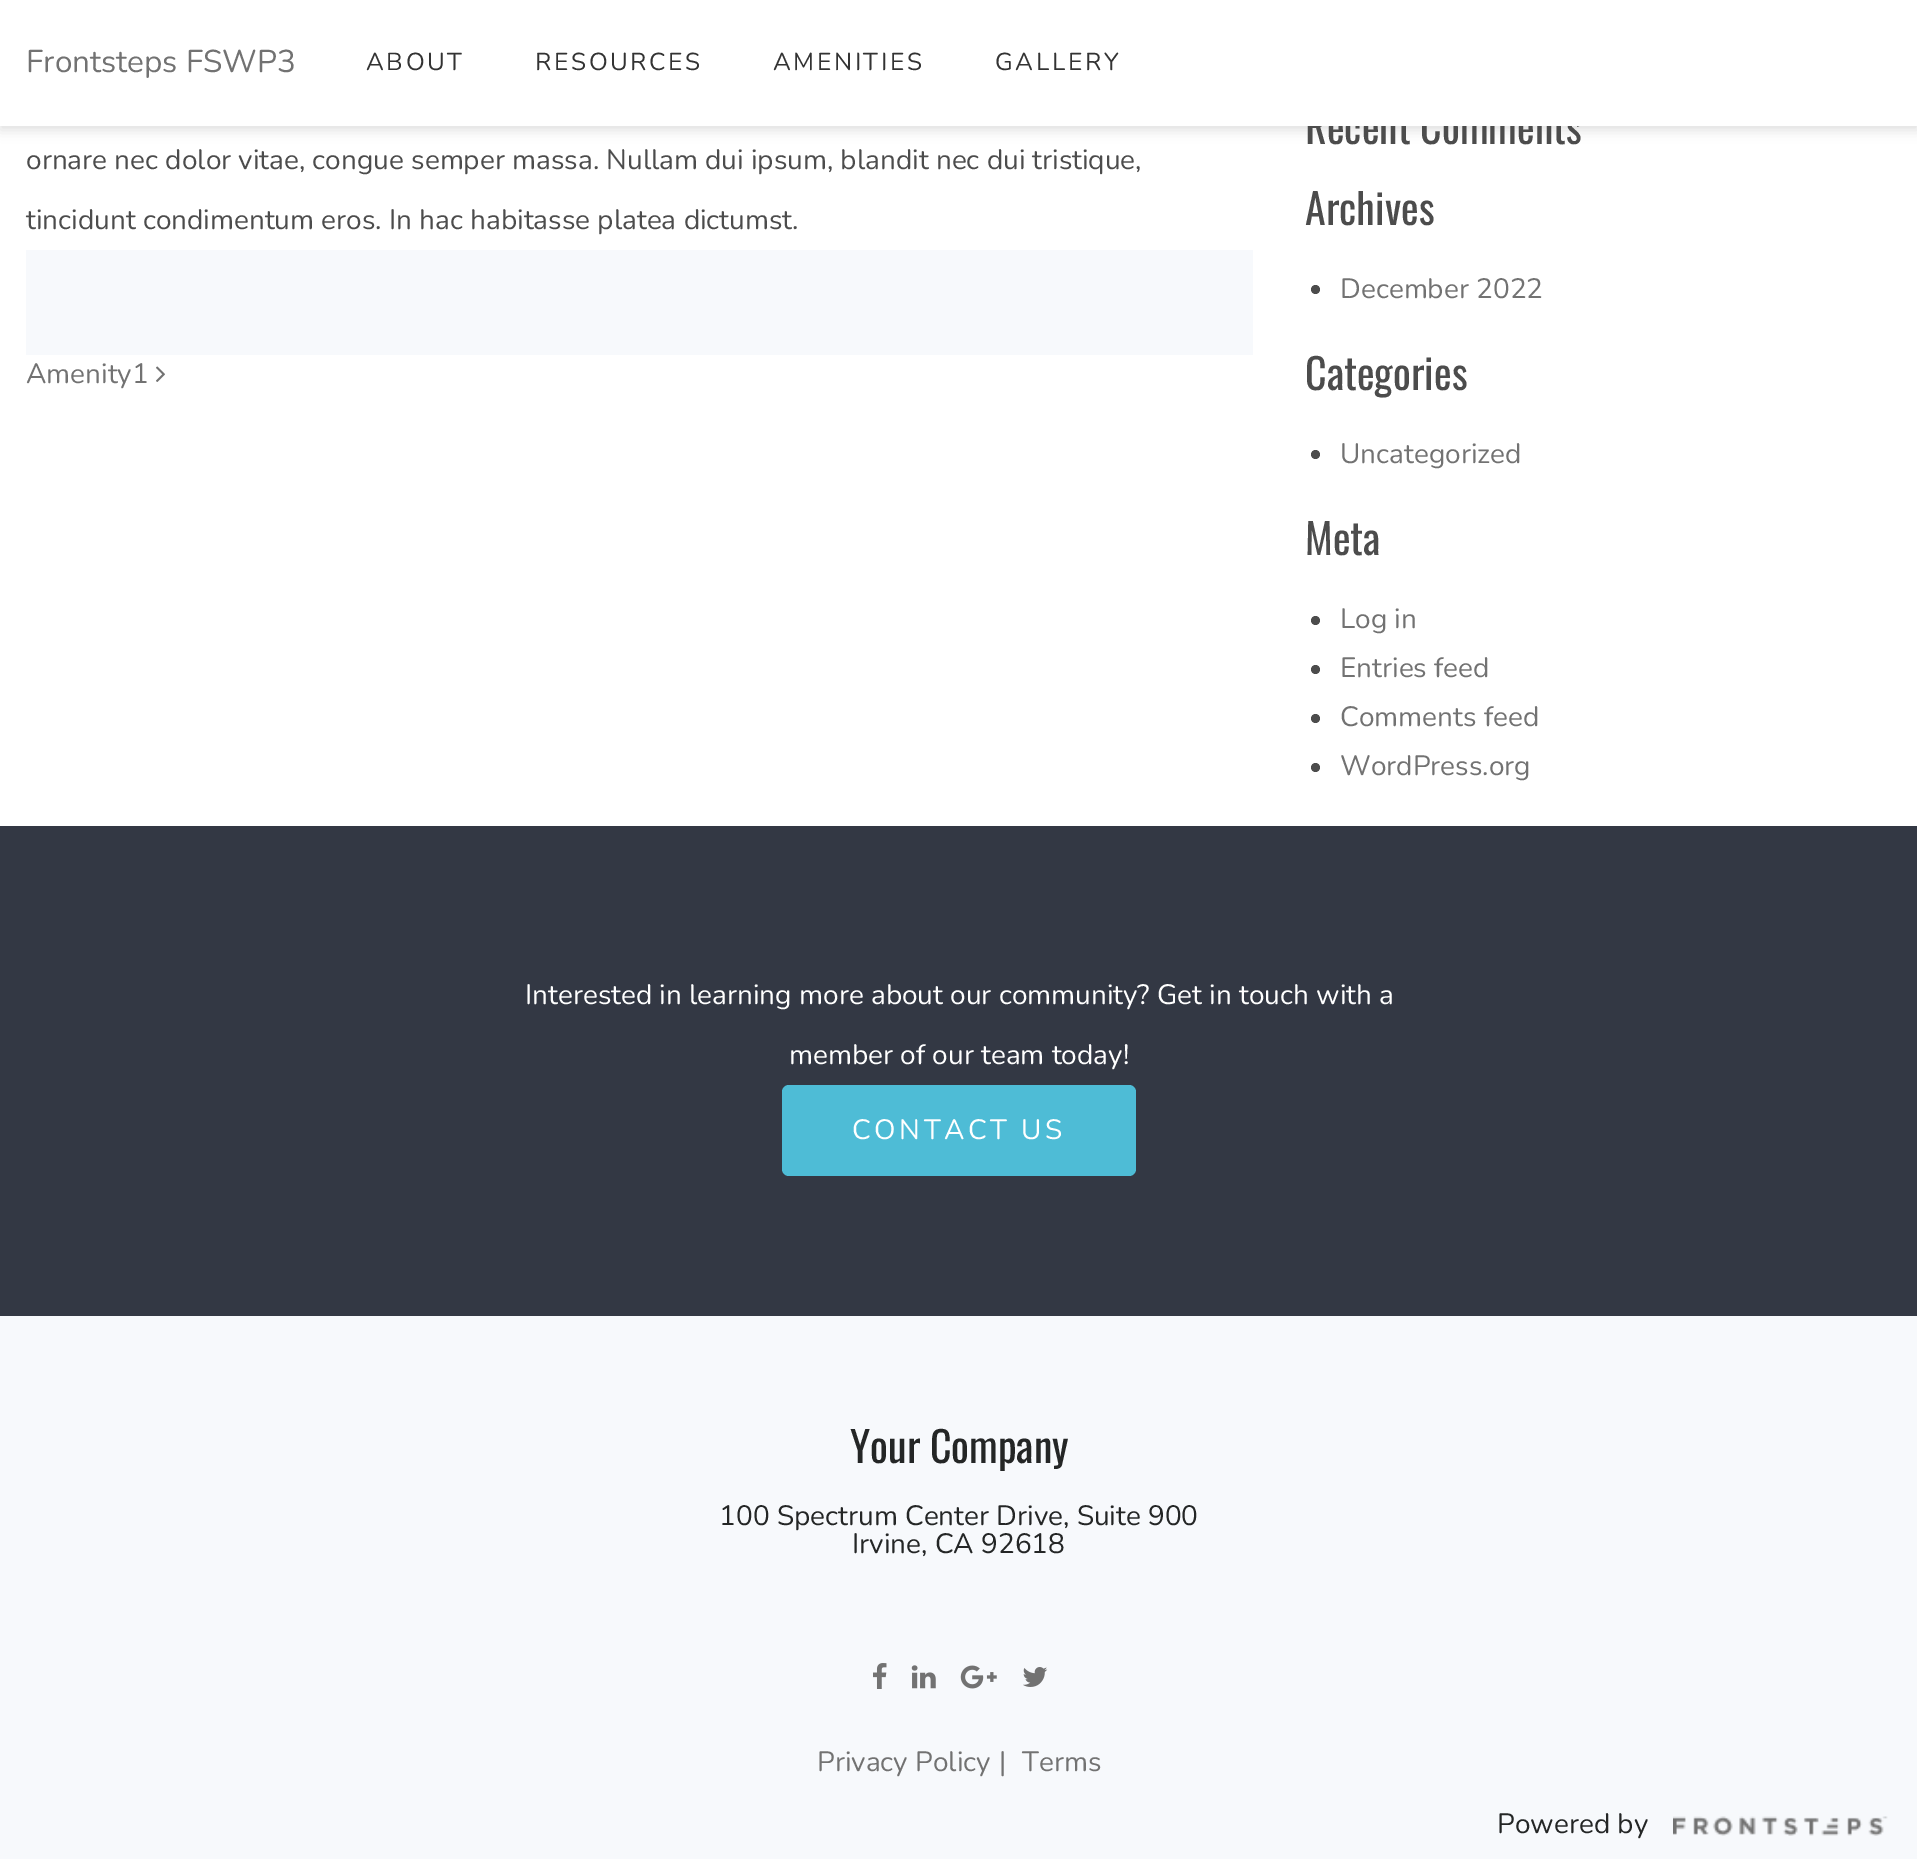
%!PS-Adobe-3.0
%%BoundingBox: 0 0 1917 1859
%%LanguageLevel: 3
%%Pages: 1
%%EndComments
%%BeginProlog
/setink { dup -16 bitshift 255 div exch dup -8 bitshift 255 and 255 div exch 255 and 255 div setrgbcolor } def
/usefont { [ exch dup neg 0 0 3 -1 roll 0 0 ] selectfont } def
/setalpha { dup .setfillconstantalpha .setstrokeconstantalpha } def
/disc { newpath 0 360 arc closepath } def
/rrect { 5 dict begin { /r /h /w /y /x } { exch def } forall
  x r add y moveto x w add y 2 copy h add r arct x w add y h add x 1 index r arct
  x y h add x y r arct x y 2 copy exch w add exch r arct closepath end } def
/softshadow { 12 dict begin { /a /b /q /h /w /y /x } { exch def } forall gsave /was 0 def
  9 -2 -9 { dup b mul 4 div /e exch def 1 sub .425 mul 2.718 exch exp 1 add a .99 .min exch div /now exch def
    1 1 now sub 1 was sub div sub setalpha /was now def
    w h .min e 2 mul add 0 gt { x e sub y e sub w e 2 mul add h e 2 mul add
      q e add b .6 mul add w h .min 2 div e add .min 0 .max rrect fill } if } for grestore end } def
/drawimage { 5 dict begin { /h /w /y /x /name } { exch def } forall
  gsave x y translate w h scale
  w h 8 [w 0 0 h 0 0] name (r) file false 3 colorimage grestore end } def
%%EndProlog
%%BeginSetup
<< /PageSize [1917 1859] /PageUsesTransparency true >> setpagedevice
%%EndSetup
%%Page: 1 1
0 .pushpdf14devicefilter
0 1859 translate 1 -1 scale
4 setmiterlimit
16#FFFFFF setink
0 0 1917 1859 rectfill
16#000000 setink
0 4 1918 126 0 6 0.12 softshadow
/Oswald-Regular 42 usefont
16#4C4C4C setink
1305 144 moveto (Recent Comments) show
16#FFFFFF setink
0 0 1917 126 rectfill
/Nunito-Regular 31.5 usefont
16#727272 setink
26 72 moveto (Frontsteps FSWP3) show
/Nunito-Regular 24.5 usefont
16#333333 setink
366 70 moveto 2.6 0 (ABOUT) ashow
535 70 moveto 2.6 0 (RESOURCES) ashow
773 70 moveto 2.6 0 (AMENITIES) ashow
995 70 moveto 2.6 0 (GALLERY) ashow
/Nunito-Regular 28 usefont
16#4C4C4C setink
26 169 moveto (ornare nec dolor vitae, congue semper massa. Nullam dui ipsum, blandit nec dui tristique,) show
26 229 moveto (tincidunt condimentum eros. In hac habitasse platea dictumst.) show
16#F7F9FC setink
26 250 1227 105 rectfill
16#727272 setink
26 383 moveto (Amenity1) show
(img1.raw) 156 366 9 16 drawimage
/Oswald-Regular 42 usefont
16#4C4C4C setink
1305 225 moveto (Archives) show
1315.5 289.5 4.5 disc fill
/Nunito-Regular 28 usefont
16#727272 setink
1340 298 moveto (December 2022) show
/Oswald-Regular 42 usefont
16#4C4C4C setink
1305 390 moveto (Categories) show
1315.5 454.5 4.5 disc fill
/Nunito-Regular 28 usefont
16#727272 setink
1340 463 moveto (Uncategorized) show
/Oswald-Regular 42 usefont
16#4C4C4C setink
1305 555 moveto (Meta) show
1315.5 620.5 4.5 disc fill
/Nunito-Regular 28 usefont
16#727272 setink
1340 628 moveto (Log in) show
16#4C4C4C setink
1315.5 669.5 4.5 disc fill
16#727272 setink
1340 677 moveto (Entries feed) show
16#4C4C4C setink
1315.5 718.5 4.5 disc fill
16#727272 setink
1340 726 moveto (Comments feed) show
16#4C4C4C setink
1315.5 767.5 4.5 disc fill
16#727272 setink
1340 775 moveto (WordPress.org) show
16#333844 setink
0 826 1917 490 rectfill
16#FFFFFF setink
525 1004 moveto (Interested in learning more about our community? Get in touch with a) show
789 1064 moveto (member of our team today!) show
16#4EBCD6 setink
782 1085 354 91 7 rrect fill
16#FFFFFF setink
852 1139 moveto 3.5 0 (CONTACT US) ashow
16#F7F9FC setink
0 1316 1917 543 rectfill
/Oswald-Regular 42 usefont
16#242626 setink
850 1463 moveto (Your Company) show
/Nunito-Regular 28 usefont
719 1525 moveto (100 Spectrum Center Drive, Suite 900) show
852 1553 moveto (Irvine, CA 92618) show
(img2.raw) 873 1663 14 26 drawimage
(img3.raw) 911 1665 25 24 drawimage
(img4.raw) 960 1665 37 24 drawimage
(img5.raw) 1023 1667 25 20 drawimage
16#727272 setink
[
    [(Privacy Policy) 817 1771]
    [(|) 999 1771]
    [(Terms) 1022 1771]
] { aload pop moveto show } forall
16#242626 setink
1497 1833 moveto (Powered by) show
(img6.raw) 1673 1816 215 20 drawimage
.poppdf14devicefilter showpage
%%EOF
